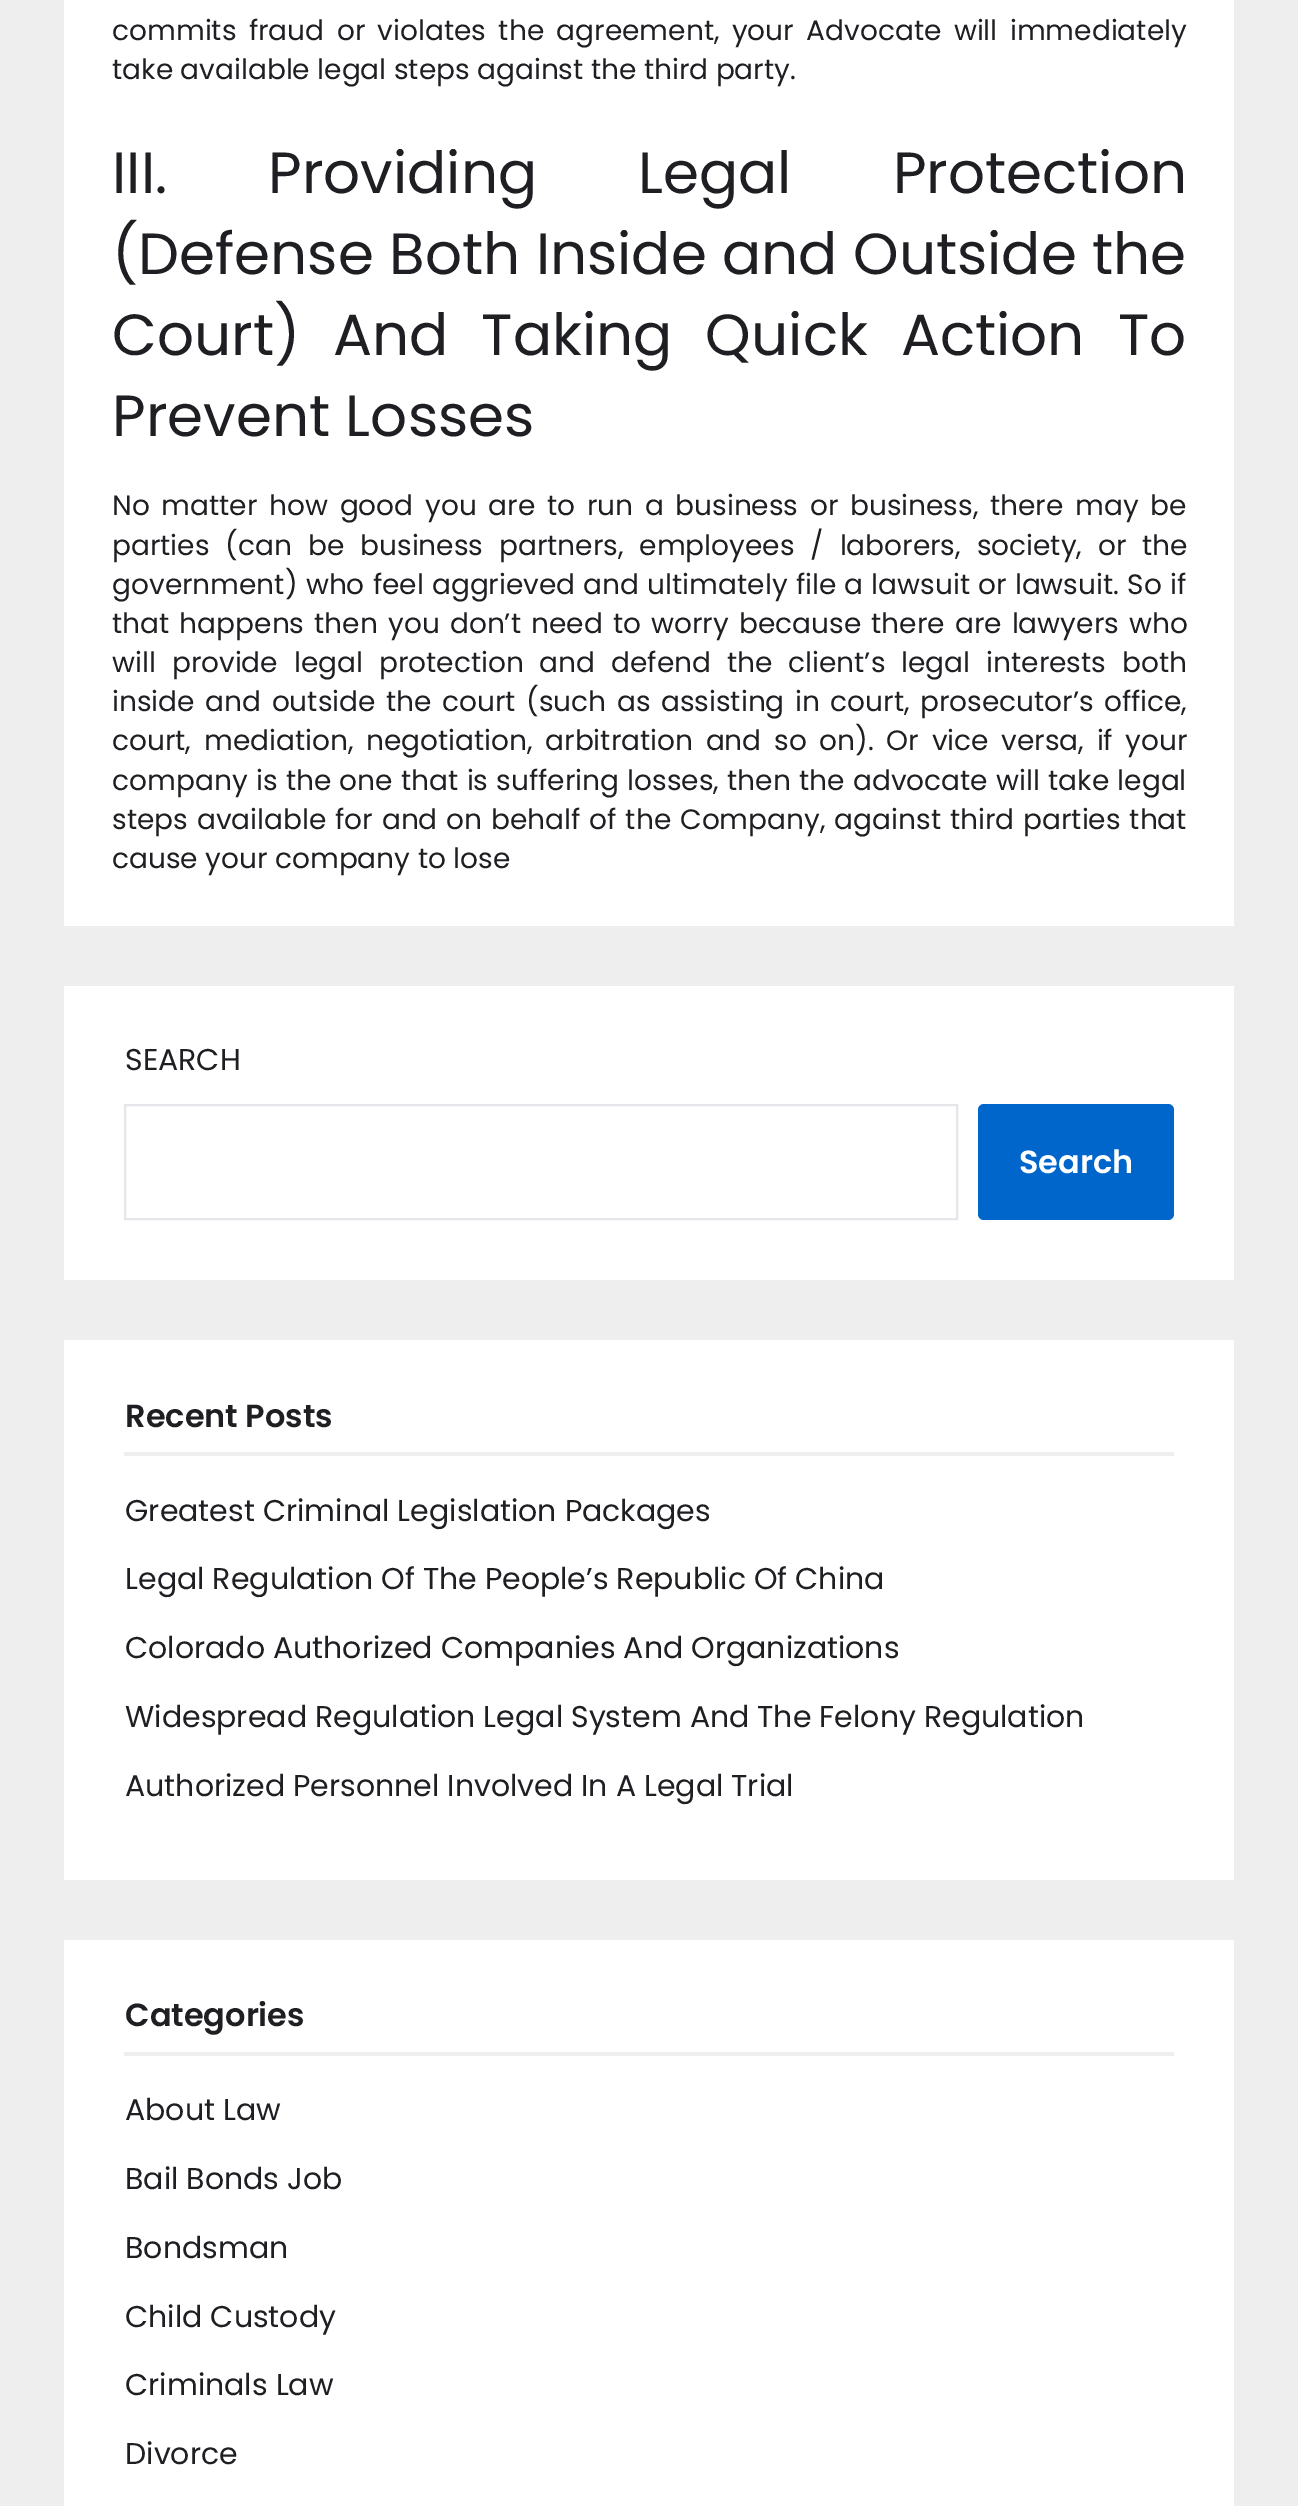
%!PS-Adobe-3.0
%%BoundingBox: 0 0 1298 2506
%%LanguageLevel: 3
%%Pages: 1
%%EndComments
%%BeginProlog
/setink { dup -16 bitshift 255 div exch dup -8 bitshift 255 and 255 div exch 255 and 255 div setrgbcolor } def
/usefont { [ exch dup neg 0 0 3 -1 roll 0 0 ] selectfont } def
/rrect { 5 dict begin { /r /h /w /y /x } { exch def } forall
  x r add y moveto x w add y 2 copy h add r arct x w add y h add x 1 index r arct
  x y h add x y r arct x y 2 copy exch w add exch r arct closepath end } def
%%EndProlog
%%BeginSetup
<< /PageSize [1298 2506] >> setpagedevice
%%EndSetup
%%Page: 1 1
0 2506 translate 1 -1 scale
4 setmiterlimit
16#EEEEEE setink
0 0 1298 2506 rectfill
16#FFFFFF setink
64 0 1170 926 rectfill
/Poppins-Regular 28 usefont
16#1F1F23 setink
112 40 moveto 5 0 32 (commits fraud or violates the agreement, your Advocate will immediately) widthshow
112 79 moveto (take available legal steps against the third party.) show
/Poppins-Regular 58 usefont
112 193 moveto 85.5 0 32 (III. Providing Legal Protection) widthshow
112 274 moveto (\(Defense Both Inside and Outside the) show
112 355 moveto 17.5 0 32 (Court\) And Taking Quick Action To) widthshow
112 436 moveto (Prevent Losses) show
/Poppins-Regular 28 usefont
112 515 moveto 4.25 0 32 (No matter how good you are to run a business or business, there may be) widthshow
112 555 moveto 8.5 0 32 (parties \(can be business partners, employees / laborers, society, or the) widthshow
112 594 moveto 0.8 0 32 (government\) who feel aggrieved and ultimately file a lawsuit or lawsuit. So if) widthshow
112 633 moveto 2.75 0 32 (that happens then you don’t need to worry because there are lawyers who) widthshow
112 672 moveto 8.5 0 32 (will provide legal protection and defend the client’s legal interests both) widthshow
112 711 moveto 3.1 0 32 (inside and outside the court \(such as assisting in court, prosecutor’s office,) widthshow
112 750 moveto 5.25 0 32 (court, mediation, negotiation, arbitration and so on\). Or vice versa, if your) widthshow
112 790 moveto 0.9 0 32 (company is the one that is suffering losses, then the advocate will take legal) widthshow
112 829 moveto 1.5 0 32 (steps available for and on behalf of the Company, against third parties that) widthshow
112 868 moveto (cause your company to lose) show
16#FFFFFF setink
64 986 1170 294 rectfill
/Poppins-Regular 30 usefont
16#1F1F23 setink
125 1070 moveto (SEARCH) show
16#E5E6E9 setink
2 setlinewidth
125 1105 832 114 rectstroke
16#0066CC setink
978 1104 196 116 6 rrect fill
/Poppins-SemiBold 32 usefont
16#FFFFFF setink
1019 1173 moveto (Search) show
64 1340 1170 540 rectfill
16#EEEEEE setink
124 1452 1050 4 rectfill
16#1F1F23 setink
125 1427 moveto (Recent Posts) show
/Poppins-Regular 30 usefont
[
    [(Greatest Criminal Legislation Packages) 125 1521]
    [(Legal Regulation Of The People’s Republic Of China) 125 1589]
    [(Colorado Authorized Companies And Organizations) 125 1658]
    [(Widespread Regulation Legal System And The Felony Regulation) 125 1727]
    [(Authorized Personnel Involved In A Legal Trial) 125 1796]
] { aload pop moveto show } forall
16#FFFFFF setink
64 1940 1170 566 rectfill
16#EEEEEE setink
124 2052 1050 4 rectfill
/Poppins-SemiBold 32 usefont
16#1F1F23 setink
125 2026 moveto (Categories) show
/Poppins-Regular 30 usefont
[
    [(About Law) 125 2120]
    [(Bail Bonds Job) 125 2189]
    [(Bondsman) 125 2258]
    [(Child Custody) 125 2327]
    [(Criminals Law) 125 2395]
    [(Divorce) 125 2464]
] { aload pop moveto show } forall
showpage
%%EOF
